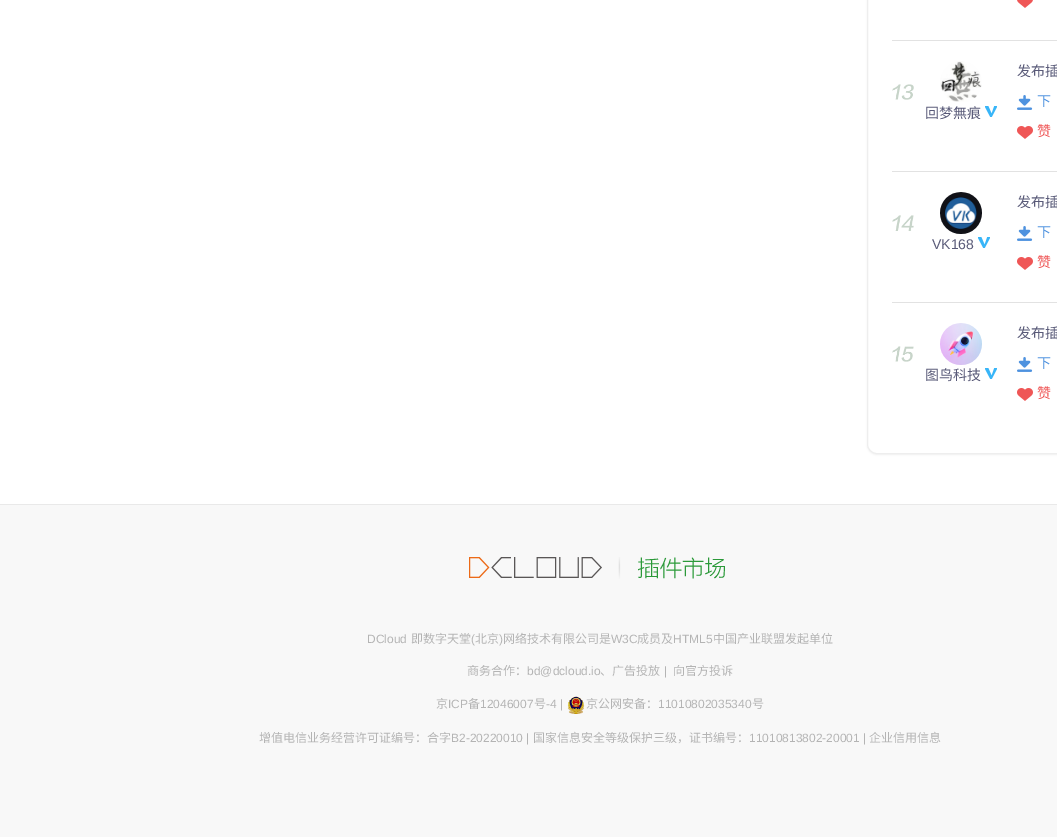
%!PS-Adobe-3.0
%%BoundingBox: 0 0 1057 837
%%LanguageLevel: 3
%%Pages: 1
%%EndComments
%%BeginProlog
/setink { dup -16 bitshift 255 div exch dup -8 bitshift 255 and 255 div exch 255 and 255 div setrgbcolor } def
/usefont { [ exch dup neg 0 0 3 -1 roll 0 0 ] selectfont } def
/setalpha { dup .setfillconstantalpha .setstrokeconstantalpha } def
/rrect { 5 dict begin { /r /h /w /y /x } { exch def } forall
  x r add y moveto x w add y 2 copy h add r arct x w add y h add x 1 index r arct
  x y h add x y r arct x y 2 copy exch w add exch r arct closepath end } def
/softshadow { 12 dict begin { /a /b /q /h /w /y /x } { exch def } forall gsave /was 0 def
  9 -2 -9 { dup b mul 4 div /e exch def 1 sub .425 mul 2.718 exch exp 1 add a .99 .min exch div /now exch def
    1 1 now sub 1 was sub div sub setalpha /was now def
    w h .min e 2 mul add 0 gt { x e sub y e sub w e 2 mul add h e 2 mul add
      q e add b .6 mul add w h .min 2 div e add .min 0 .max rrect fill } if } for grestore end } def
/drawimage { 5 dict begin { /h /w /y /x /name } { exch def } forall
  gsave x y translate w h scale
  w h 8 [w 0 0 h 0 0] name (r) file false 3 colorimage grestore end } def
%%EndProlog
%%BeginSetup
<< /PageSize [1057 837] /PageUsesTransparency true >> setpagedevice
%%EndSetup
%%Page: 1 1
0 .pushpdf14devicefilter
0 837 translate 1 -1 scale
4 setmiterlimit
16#FFFFFF setink
0 0 1057 837 rectfill
16#000000 setink
867 -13 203 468 10 1 0.05 softshadow
16#FFFFFF setink
867.5 -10.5 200 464 9.5 rrect gsave fill grestore
16#EEEEEE setink
stroke
16#E2E2E2 setink
892 40 165 1 rectfill
(img1.raw) 1017 0 16 8 drawimage
892 171 165 1 rectfill
(img2.raw) 892 84 22 16 drawimage
/NotoSansCJKSC-Regular 14 usefont
16#595A78 setink
1017 76 moveto (发布插) show
(img3.raw) 1017 95 16 15 drawimage
16#4E92DF setink
1037 106 moveto (下) show
(img4.raw) 1017 126 16 13 drawimage
16#EF5656 setink
1037 136 moveto (赞) show
(img5.raw) 940 61 42 41 drawimage
16#595A78 setink
925 118 moveto (回梦無痕) show
(img6.raw) 985 106 12 11 drawimage
16#E2E2E2 setink
892 302 165 1 rectfill
(img7.raw) 892 215 22 16 drawimage
16#595A78 setink
1017 207 moveto (发布插) show
(img3.raw) 1017 226 16 15 drawimage
16#4E92DF setink
1037 237 moveto (下) show
(img4.raw) 1017 257 16 13 drawimage
16#EF5656 setink
1037 267 moveto (赞) show
(img8.raw) 940 192 42 42 drawimage
/LiberationSans-Regular 14 usefont
16#595A78 setink
932 249 moveto (VK168) show
(img6.raw) 978 237 12 11 drawimage
(img9.raw) 892 346 22 16 drawimage
/NotoSansCJKSC-Regular 14 usefont
1017 338 moveto (发布插) show
(img3.raw) 1017 357 16 15 drawimage
16#4E92DF setink
1037 368 moveto (下) show
(img4.raw) 1017 388 16 13 drawimage
16#EF5656 setink
1037 398 moveto (赞) show
(img10.raw) 940 323 42 42 drawimage
16#595A78 setink
925 380 moveto (图鸟科技) show
(img6.raw) 985 368 12 11 drawimage
16#F8F8F8 setink
0 505 1057 332 rectfill
16#E9E9E9 setink
0 504 1057 1 rectfill
(img11.raw) 469 557 256 22 drawimage
/LiberationSans-Regular 12 usefont
16#B4B4B4 setink
367 643 moveto (DCloud) show
/NotoSansCJKSC-Regular 12 usefont
411 643 moveto (即数字天堂) show
/LiberationSans-Regular 12 usefont
471 643 moveto (\() show
/NotoSansCJKSC-Regular 12 usefont
475 643 moveto (北京) show
/LiberationSans-Regular 12 usefont
499 643 moveto (\)) show
/NotoSansCJKSC-Regular 12 usefont
503 643 moveto (网络技术有限公司是) show
/LiberationSans-Regular 12 usefont
611 643 moveto (W3C) show
/NotoSansCJKSC-Regular 12 usefont
637 643 moveto (成员及) show
/LiberationSans-Regular 12 usefont
673 643 moveto (HTML5) show
/NotoSansCJKSC-Regular 12 usefont
713 643 moveto (中国产业联盟发起单位) show
467 675 moveto (商务合作：) show
/LiberationSans-Regular 12 usefont
527 675 moveto (bd@dcloud.io) show
/NotoSansCJKSC-Regular 12 usefont
600 675 moveto (、广告投放) show
/LiberationSans-Regular 12 usefont
664 675 moveto (|) show
/NotoSansCJKSC-Regular 12 usefont
673 675 moveto (向官方投诉) show
436 708 moveto (京) show
/LiberationSans-Regular 12 usefont
448 708 moveto (ICP) show
/NotoSansCJKSC-Regular 12 usefont
468 708 moveto (备) show
/LiberationSans-Regular 12 usefont
480 708 moveto (12046007) show
/NotoSansCJKSC-Regular 12 usefont
534 708 moveto (号) show
/LiberationSans-Regular 12 usefont
546 708 moveto (-4 |) show
(img12.raw) 567 696 18 18 drawimage
/NotoSansCJKSC-Regular 12 usefont
586 708 moveto (京公网安备：) show
/LiberationSans-Regular 12 usefont
658 708 moveto (11010802035340) show
/NotoSansCJKSC-Regular 12 usefont
752 708 moveto (号) show
259 742 moveto (增值电信业务经营许可证编号：合字) show
/LiberationSans-Regular 12 usefont
451 742 moveto (B2-20220010 |) show
/NotoSansCJKSC-Regular 12 usefont
533 742 moveto (国家信息安全等级保护三级，证书编号：) show
/LiberationSans-Regular 12 usefont
749 742 moveto (11010813802-20001 |) show
/NotoSansCJKSC-Regular 12 usefont
869 742 moveto (企业信用信息) show
.poppdf14devicefilter showpage
%%EOF
